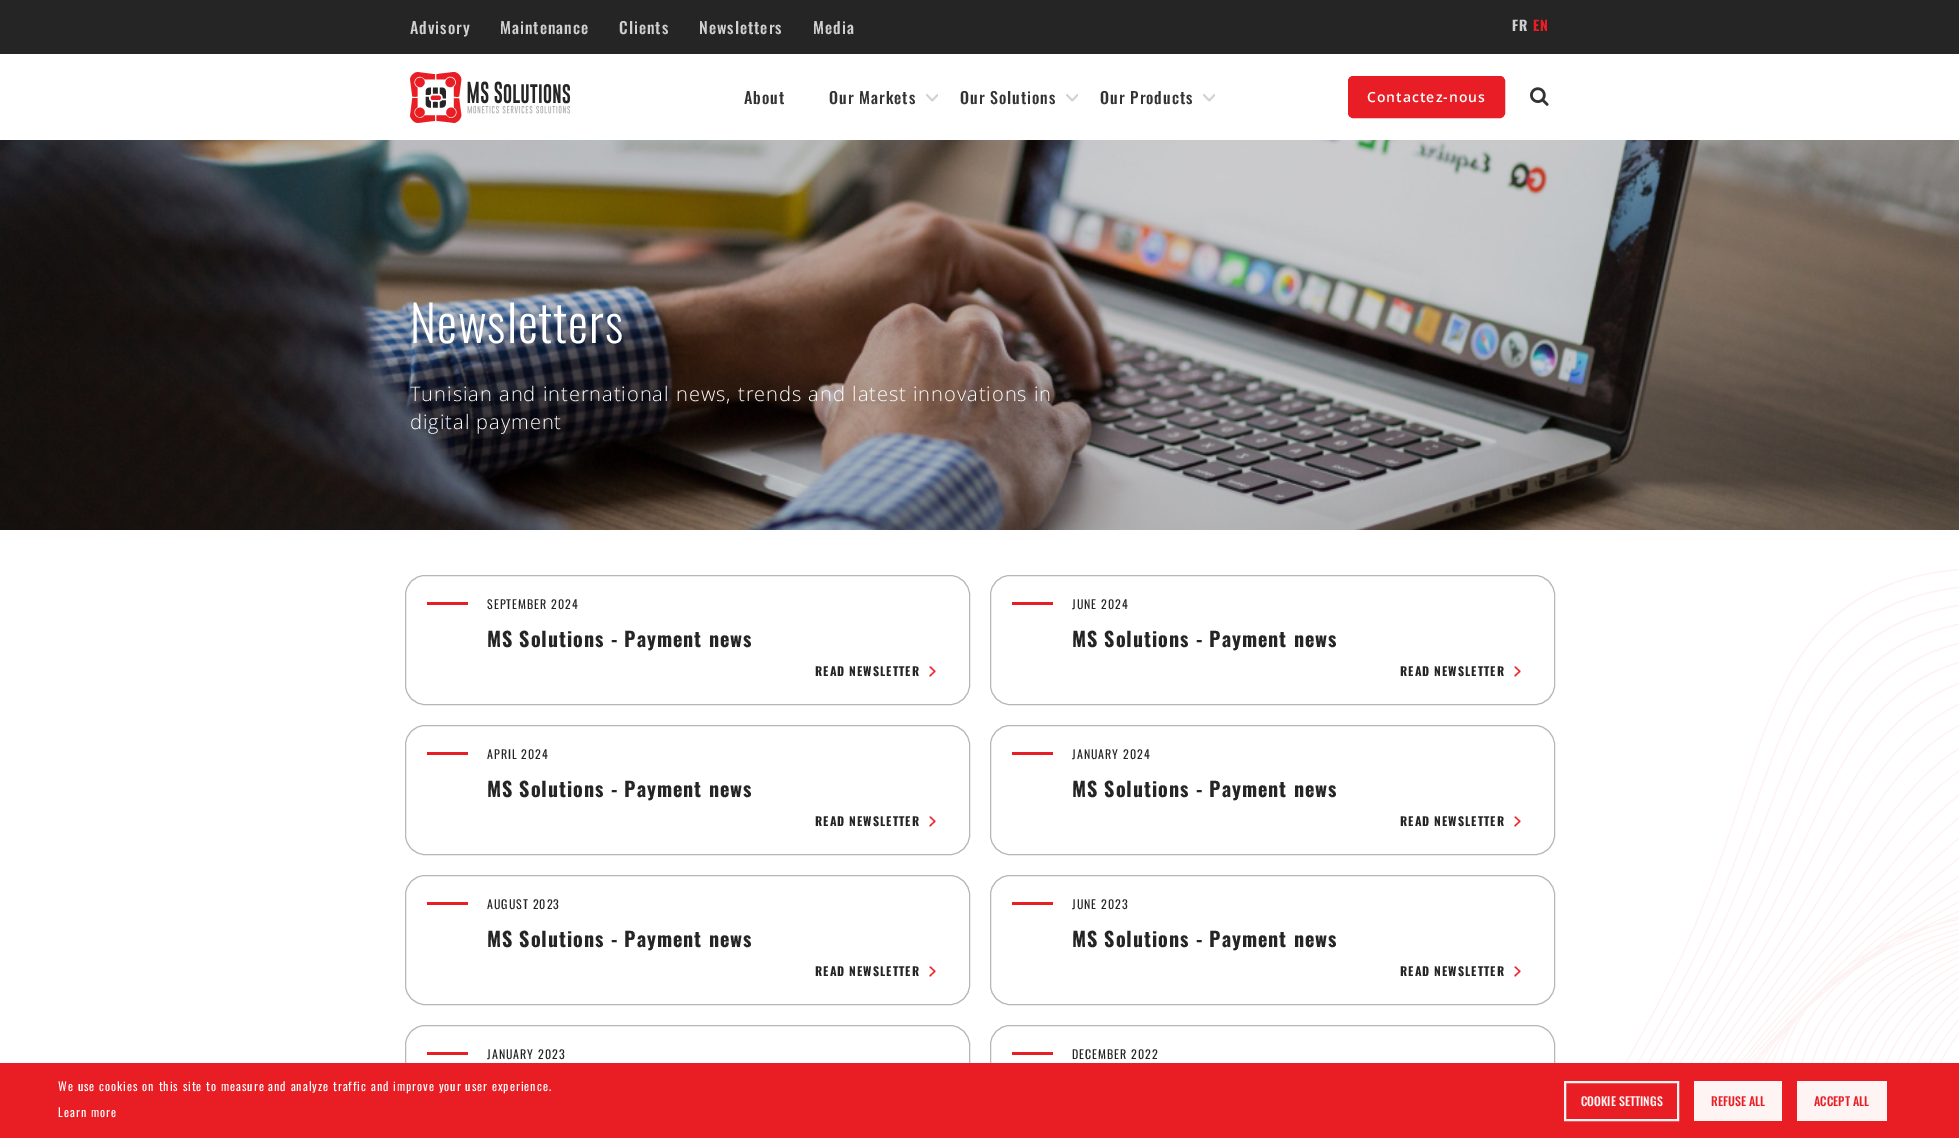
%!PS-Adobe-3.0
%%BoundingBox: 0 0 1959 1138
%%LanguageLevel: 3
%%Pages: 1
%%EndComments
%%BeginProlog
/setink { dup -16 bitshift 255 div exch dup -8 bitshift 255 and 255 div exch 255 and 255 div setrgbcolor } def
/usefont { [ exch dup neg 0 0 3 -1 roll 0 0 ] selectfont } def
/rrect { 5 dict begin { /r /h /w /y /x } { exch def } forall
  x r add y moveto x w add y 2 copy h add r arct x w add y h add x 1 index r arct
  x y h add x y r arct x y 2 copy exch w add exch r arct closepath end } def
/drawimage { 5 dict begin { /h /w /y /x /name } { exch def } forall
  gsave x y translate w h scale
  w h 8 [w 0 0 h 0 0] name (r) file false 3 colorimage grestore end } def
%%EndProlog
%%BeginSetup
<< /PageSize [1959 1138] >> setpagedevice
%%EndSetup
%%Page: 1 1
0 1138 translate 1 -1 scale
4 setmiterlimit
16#FFFFFF setink
0 0 1959 1138 rectfill
(img1.raw) 1625 569 334 494 drawimage
16#252526 setink
0 0 1959 54 rectfill
/Oswald-Medium 16 usefont
16#D0D0D0 setink
410 34 moveto 1 0 (Advisory) ashow
500 34 moveto 1 0 (Maintenance) ashow
619 34 moveto 1 0 (Clients) ashow
699 34 moveto 1 0 (Newsletters) ashow
813 34 moveto 1 0 (Media) ashow
/Oswald-Bold 14 usefont
1512 31 moveto 1 0 (FR) ashow
16#E91E25 setink
1533 31 moveto 1 0 (EN) ashow
(img2.raw) 410 72 160 51 drawimage
/Oswald-Medium 16 usefont
16#333333 setink
744 104 moveto 1 0 (About) ashow
(img3.raw) 926 94 12 8 drawimage
829 104 moveto 1 0 (Our Markets) ashow
(img3.raw) 1066 94 12 8 drawimage
960 104 moveto 1 0 (Our Solutions) ashow
(img3.raw) 1203 94 12 8 drawimage
1100 104 moveto 1 0 (Our Products) ashow
16#E91D25 setink
1348.5 76.5 156 41 4.5 rrect gsave fill grestore
stroke
/OpenSans-SemiBold 14 usefont
16#FFFFFF setink
1367 102 moveto 1 0 (Contactez-nous) ashow
(img4.raw) 1530 87 19 19 drawimage
(img5.raw) 0 140 1959 390 drawimage
/Oswald-Light 50 usefont
410 343 moveto 1 0 (Newsletters) ashow
/OpenSans-Light 20 usefont
410 401 moveto 1 0 (Tunisian and international news, trends and latest innovations in) ashow
410 429 moveto 1 0 (digital payment) ashow
16#B7B7B7 setink
405.5 575.5 564 129 19.5 rrect stroke
16#E91E25 setink
427 602 41 3 rectfill
/Oswald-Regular 12 usefont
16#252526 setink
487 609 moveto 1 0 (SEPTEMBER 2024) ashow
/Oswald-Bold 20 usefont
487 647 moveto 1 0 (MS Solutions - Payment news) ashow
/Oswald-Bold 12 usefont
815 676 moveto 1 0 (READ NEWSLETTER) ashow
(img6.raw) 929 666 7 11 drawimage
16#B7B7B7 setink
990.5 575.5 564 129 19.5 rrect stroke
16#E91E25 setink
1012 602 41 3 rectfill
/Oswald-Regular 12 usefont
16#252526 setink
1072 609 moveto 1 0 (JUNE 2024) ashow
/Oswald-Bold 20 usefont
1072 647 moveto 1 0 (MS Solutions - Payment news) ashow
/Oswald-Bold 12 usefont
1400 676 moveto 1 0 (READ NEWSLETTER) ashow
(img7.raw) 1514 666 7 11 drawimage
16#B7B7B7 setink
405.5 725.5 564 129 19.5 rrect stroke
16#E91E25 setink
427 752 41 3 rectfill
/Oswald-Regular 12 usefont
16#252526 setink
487 759 moveto 1 0 (APRIL 2024) ashow
/Oswald-Bold 20 usefont
487 797 moveto 1 0 (MS Solutions - Payment news) ashow
/Oswald-Bold 12 usefont
815 826 moveto 1 0 (READ NEWSLETTER) ashow
(img6.raw) 929 816 7 11 drawimage
16#B7B7B7 setink
990.5 725.5 564 129 19.5 rrect stroke
16#E91E25 setink
1012 752 41 3 rectfill
/Oswald-Regular 12 usefont
16#252526 setink
1072 759 moveto 1 0 (JANUARY 2024) ashow
/Oswald-Bold 20 usefont
1072 797 moveto 1 0 (MS Solutions - Payment news) ashow
/Oswald-Bold 12 usefont
1400 826 moveto 1 0 (READ NEWSLETTER) ashow
(img7.raw) 1514 816 7 11 drawimage
16#B7B7B7 setink
405.5 875.5 564 129 19.5 rrect stroke
16#E91E25 setink
427 902 41 3 rectfill
/Oswald-Regular 12 usefont
16#252526 setink
487 909 moveto 1 0 (AUGUST 2023) ashow
/Oswald-Bold 20 usefont
487 947 moveto 1 0 (MS Solutions - Payment news) ashow
/Oswald-Bold 12 usefont
815 976 moveto 1 0 (READ NEWSLETTER) ashow
(img6.raw) 929 966 7 11 drawimage
16#B7B7B7 setink
990.5 875.5 564 129 19.5 rrect stroke
16#E91E25 setink
1012 902 41 3 rectfill
/Oswald-Regular 12 usefont
16#252526 setink
1072 909 moveto 1 0 (JUNE 2023) ashow
/Oswald-Bold 20 usefont
1072 947 moveto 1 0 (MS Solutions - Payment news) ashow
/Oswald-Bold 12 usefont
1400 976 moveto 1 0 (READ NEWSLETTER) ashow
(img7.raw) 1514 966 7 11 drawimage
16#B7B7B7 setink
405.5 1025.5 564 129 19.5 rrect stroke
16#E91E25 setink
427 1052 41 3 rectfill
/Oswald-Regular 12 usefont
16#252526 setink
487 1059 moveto 1 0 (JANUARY 2023) ashow
16#B7B7B7 setink
990.5 1025.5 564 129 19.5 rrect stroke
16#E91E25 setink
1012 1052 41 3 rectfill
16#252526 setink
1072 1059 moveto 1 0 (DECEMBER 2022) ashow
16#E91E25 setink
0 1063 1959 75 rectfill
16#FFFFFF setink
58 1091 moveto 1 0 (We use cookies on this site to measure and analyze traffic and improve your user experience.) ashow
58 1117 moveto 1 0 (Learn more) ashow
16#FEF4F4 setink
2 setlinewidth
1565 1082 113 38 rectstroke
/Oswald-Medium 12 usefont
1581 1106 moveto (COOKIE SETTINGS) show
1694 1081 88 40 rectfill
16#E91E25 setink
1711 1106 moveto (REFUSE ALL) show
16#FEF4F4 setink
1797 1081 90 40 rectfill
16#E91E25 setink
1814 1106 moveto (ACCEPT ALL) show
showpage
%%EOF
